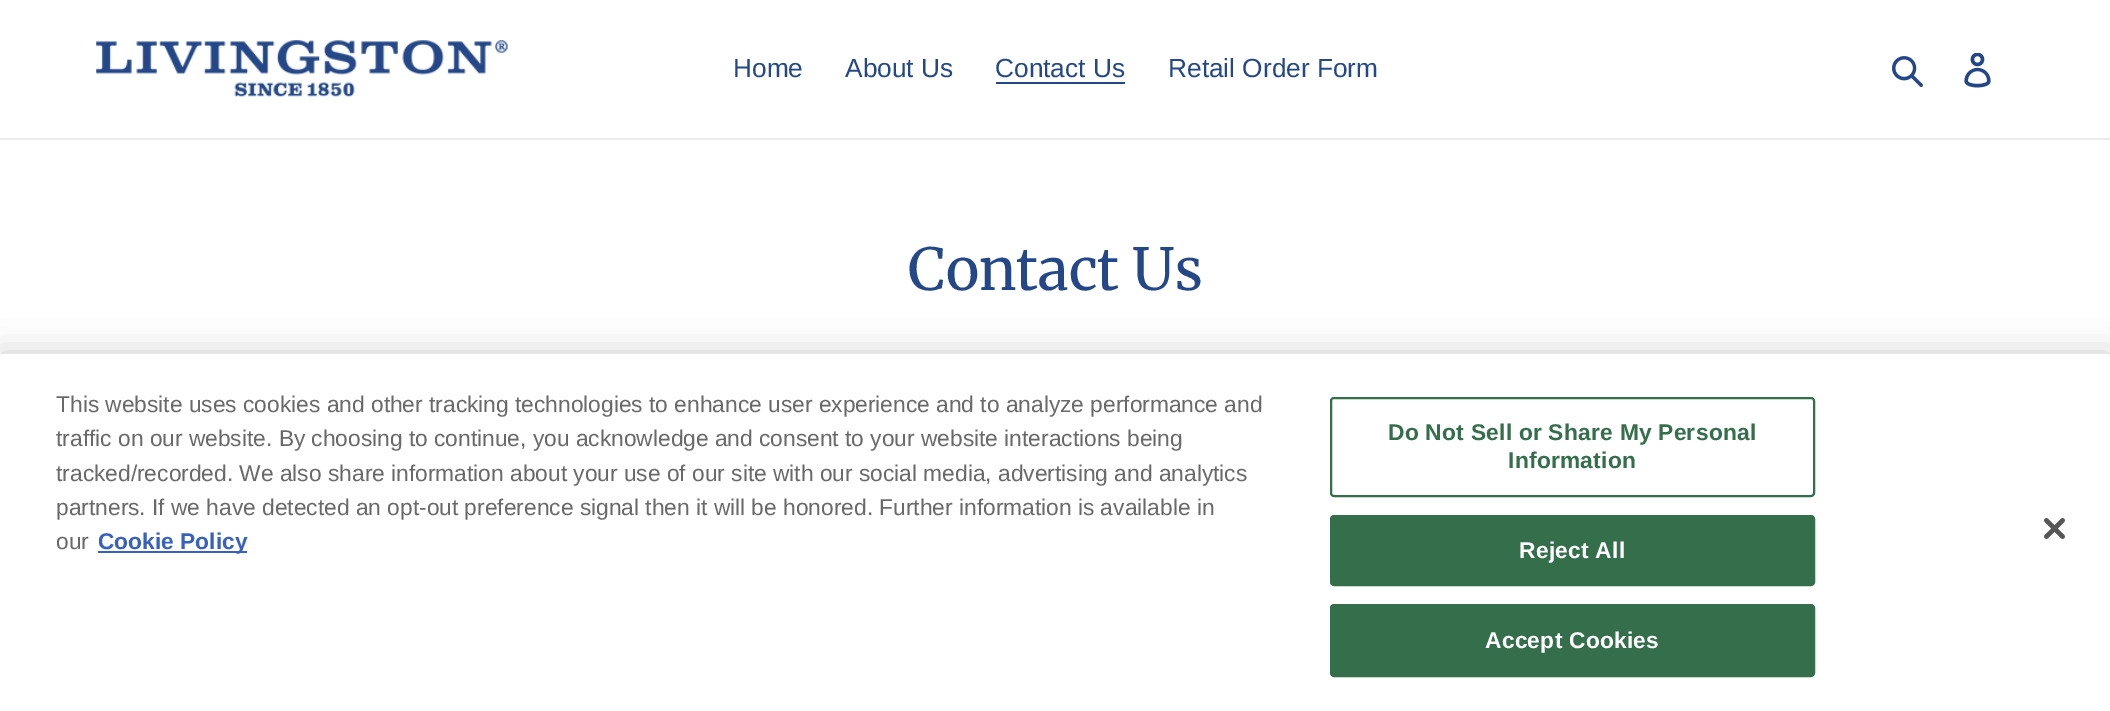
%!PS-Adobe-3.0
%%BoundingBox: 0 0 2110 711
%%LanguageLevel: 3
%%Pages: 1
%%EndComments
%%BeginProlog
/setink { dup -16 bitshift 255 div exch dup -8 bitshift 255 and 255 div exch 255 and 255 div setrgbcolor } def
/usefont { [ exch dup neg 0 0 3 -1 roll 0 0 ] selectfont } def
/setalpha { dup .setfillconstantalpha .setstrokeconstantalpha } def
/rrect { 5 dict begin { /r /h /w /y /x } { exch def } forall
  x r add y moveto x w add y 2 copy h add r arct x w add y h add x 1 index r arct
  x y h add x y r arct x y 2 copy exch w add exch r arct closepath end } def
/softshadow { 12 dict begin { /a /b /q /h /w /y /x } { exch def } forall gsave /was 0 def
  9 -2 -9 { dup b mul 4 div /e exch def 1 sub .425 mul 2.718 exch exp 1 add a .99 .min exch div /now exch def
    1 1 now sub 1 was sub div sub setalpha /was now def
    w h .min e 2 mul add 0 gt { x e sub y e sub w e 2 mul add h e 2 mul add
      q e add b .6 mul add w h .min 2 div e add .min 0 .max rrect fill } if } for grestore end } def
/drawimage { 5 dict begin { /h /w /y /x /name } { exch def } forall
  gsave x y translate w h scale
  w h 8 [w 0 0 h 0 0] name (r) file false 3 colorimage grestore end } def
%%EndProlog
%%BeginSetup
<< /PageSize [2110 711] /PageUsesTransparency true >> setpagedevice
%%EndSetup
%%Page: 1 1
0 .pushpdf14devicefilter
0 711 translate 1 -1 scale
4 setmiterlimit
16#FFFFFF setink
0 0 2110 711 rectfill
16#EBEBEB setink
0 138 2110 2 rectfill
(img1.raw) 96 40 412 57 drawimage
/LiberationSans-Regular 26.25 usefont
16#234787 setink
[
    [(Home) 733 77]
    [(About Us) 845 77]
    [(Contact Us) 995 77]
] { aload pop moveto show } forall
996 82 129 2 rectfill
1168 77 moveto (Retail Order Form) show
(img2.raw) 1892 56 31 31 drawimage
(img3.raw) 1964 53 27 35 drawimage
/Merriweather-Regular 57.75 usefont
908 290 moveto (Contact Us) show
16#000000 setink
0 354 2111 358 0 16 0.2 softshadow
16#FFFFFF setink
0 354 2110 357 rectfill
/LiberationSans-Regular 22.75 usefont
16#696969 setink
[
    [(This website uses cookies and other tracking technologies to enhance user experience and to analyze performance and) 56 412]
    [(traffic on our website. By choosing to continue, you acknowledge and consent to your website interactions being) 56 446]
    [(tracked/recorded. We also share information about your use of our site with our social media, advertising and analytics) 56 481]
    [(partners. If we have detected an opt-out preference signal then it will be honored. Further information is available in) 56 515]
    [(our) 56 549]
] { aload pop moveto show } forall
16#3860BE setink
98 551 149 2 rectfill
/LiberationSans-Bold 22.75 usefont
98 549 moveto (Cookie Policy) show
16#346E4A setink
2 setlinewidth
1331 398 483 98 3 rrect stroke
1388 440 moveto 0.25 0 (Do Not Sell or Share My Personal) ashow
1508 468 moveto 0.25 0 (Information) ashow
1331 516 483 69 3 rrect gsave fill grestore
stroke
16#FFFFFF setink
1519 558 moveto 0.25 0 (Reject All) ashow
16#346E4A setink
1331 605 483 71 3 rrect gsave fill grestore
stroke
16#FFFFFF setink
1485 648 moveto 0.25 0 (Accept Cookies) ashow
(img4.raw) 2044 518 21 21 drawimage
.poppdf14devicefilter showpage
%%EOF
